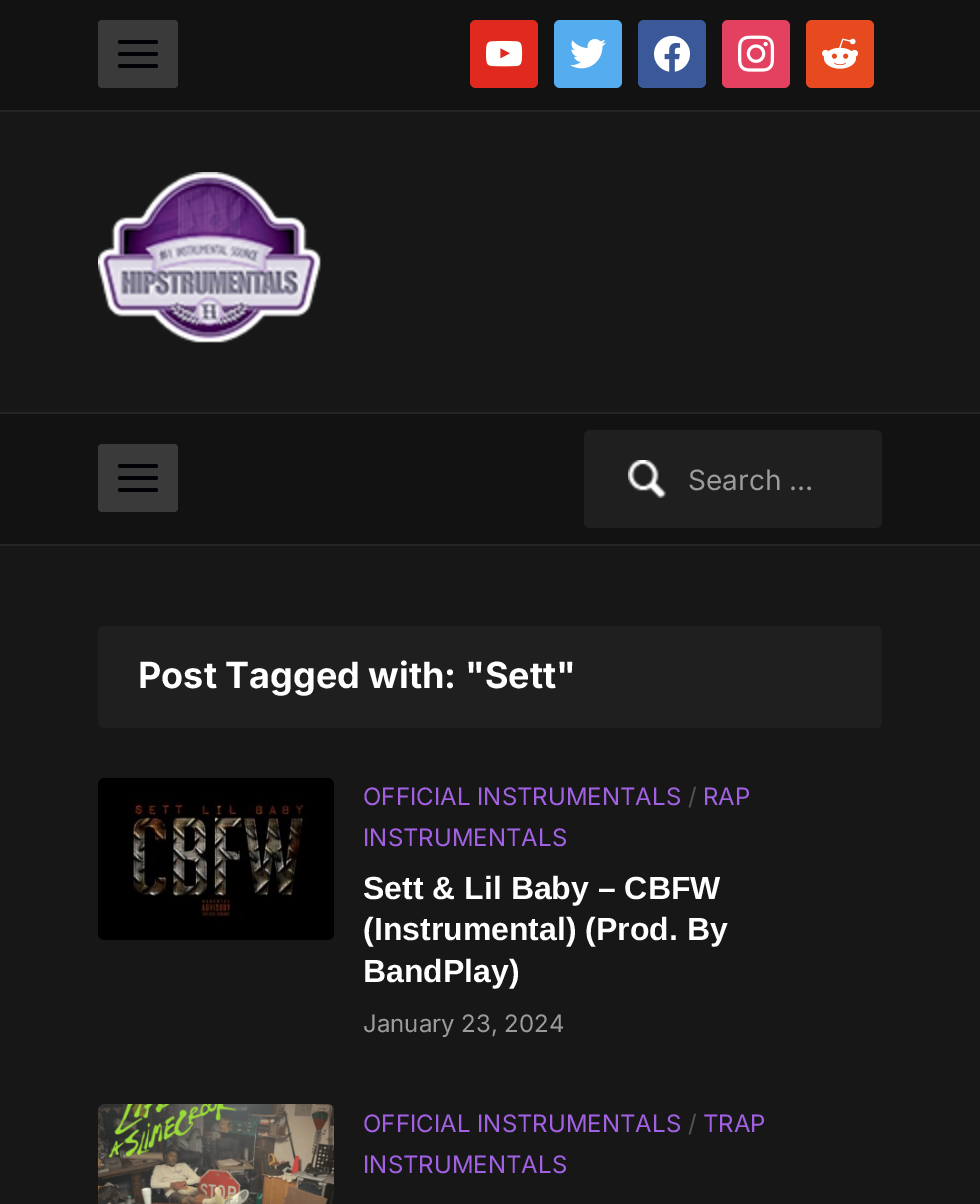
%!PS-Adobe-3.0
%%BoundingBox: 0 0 980 1204
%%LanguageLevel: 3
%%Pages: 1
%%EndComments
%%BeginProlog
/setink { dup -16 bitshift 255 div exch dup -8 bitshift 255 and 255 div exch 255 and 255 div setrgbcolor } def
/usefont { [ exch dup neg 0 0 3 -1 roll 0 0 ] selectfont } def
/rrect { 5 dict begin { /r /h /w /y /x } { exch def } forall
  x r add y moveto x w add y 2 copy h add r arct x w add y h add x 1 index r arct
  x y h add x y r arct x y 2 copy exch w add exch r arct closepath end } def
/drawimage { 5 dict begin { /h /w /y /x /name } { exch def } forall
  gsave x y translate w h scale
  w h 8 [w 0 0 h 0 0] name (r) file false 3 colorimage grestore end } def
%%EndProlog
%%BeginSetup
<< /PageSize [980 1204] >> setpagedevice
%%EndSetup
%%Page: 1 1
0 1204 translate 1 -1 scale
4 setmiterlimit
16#171717 setink
0 0 980 1204 rectfill
16#121212 setink
0 0 980 110 rectfill
16#252525 setink
0 110 980 2 rectfill
16#3A3A3A setink
98 20 80 68 4 rrect fill
16#020206 setink
118 40 40 4 2 rrect fill
118 52 40 4 2 rrect fill
118 64 40 4 2 rrect fill
16#E02A20 setink
470 20 68 68 6 rrect fill
(img1.raw) 486 40 37 27 drawimage
16#55ACEE setink
554 20 68 68 6 rrect fill
(img2.raw) 570 39 36 30 drawimage
16#3B5998 setink
638 20 68 68 6 rrect fill
(img3.raw) 654 35 36 37 drawimage
16#E4405F setink
722 20 68 68 6 rrect fill
(img4.raw) 738 35 37 37 drawimage
16#E74A1E setink
806 20 68 68 6 rrect fill
(img5.raw) 822 38 37 31 drawimage
(img6.raw) 98 172 223 171 drawimage
[
    [0 414 980 130 16#121212]
    [0 412 980 2 16#252525]
    [0 544 980 2 16#252525]
] { aload pop setink rectfill } forall
16#3A3A3A setink
98 444 80 68 4 rrect fill
16#020206 setink
118 464 40 4 2 rrect fill
118 476 40 4 2 rrect fill
118 488 40 4 2 rrect fill
16#1F1F1F setink
584 430 298 98 6 rrect fill
(img7.raw) 628 460 38 38 drawimage
/Inter-Regular 28 usefont
16#9B9B9B setink
688 490 moveto (Search …) show
16#1F1F1F setink
98 626 784 102 6 rrect fill
/Inter-Bold 36 usefont
16#FFFFFF setink
138 688 moveto (Post Tagged with: "Sett") show
(img8.raw) 98 778 236 162 drawimage
/Inter-Regular 24 usefont
16#A261E2 setink
363 805 moveto (OFFICIAL INSTRUMENTALS) show
16#555555 setink
688 805 moveto (/) show
16#A261E2 setink
703 805 moveto (RAP) show
363 846 moveto (INSTRUMENTALS) show
/LiberationSans-Bold 32 usefont
16#FFFFFF setink
[
    [(Sett & Lil Baby – CBFW) 363 899]
    [(\(Instrumental\) \(Prod. By) 363 940]
    [(BandPlay\)) 363 982]
] { aload pop moveto show } forall
/Inter-Regular 24 usefont
16#9B9B9B setink
363 1032 moveto (January 23, 2024) show
(img9.raw) 98 1104 236 100 drawimage
16#A261E2 setink
363 1132 moveto (OFFICIAL INSTRUMENTALS) show
16#555555 setink
688 1132 moveto (/) show
16#A261E2 setink
703 1132 moveto (TRAP) show
363 1173 moveto (INSTRUMENTALS) show
showpage
%%EOF
